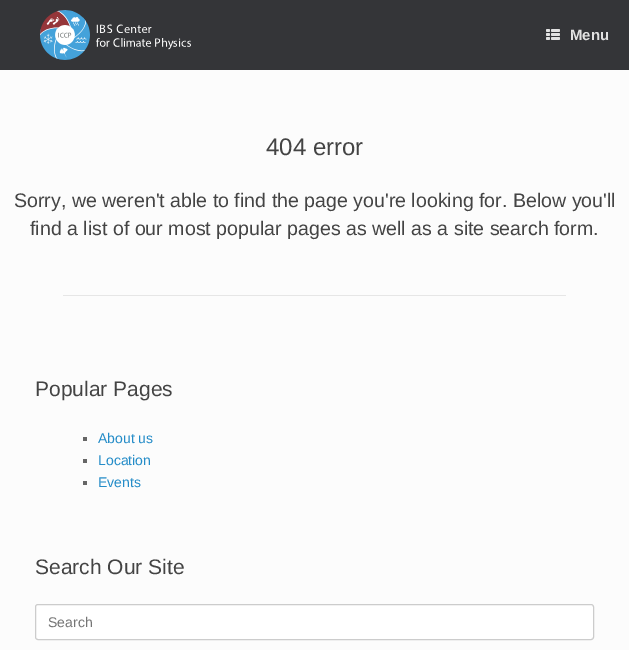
%!PS-Adobe-3.0
%%BoundingBox: 0 0 629 650
%%LanguageLevel: 3
%%Pages: 1
%%EndComments
%%BeginProlog
/setink { dup -16 bitshift 255 div exch dup -8 bitshift 255 and 255 div exch 255 and 255 div setrgbcolor } def
/usefont { [ exch dup neg 0 0 3 -1 roll 0 0 ] selectfont } def
/rrect { 5 dict begin { /r /h /w /y /x } { exch def } forall
  x r add y moveto x w add y 2 copy h add r arct x w add y h add x 1 index r arct
  x y h add x y r arct x y 2 copy exch w add exch r arct closepath end } def
/drawimage { 5 dict begin { /h /w /y /x /name } { exch def } forall
  gsave x y translate w h scale
  w h 8 [w 0 0 h 0 0] name (r) file false 3 colorimage grestore end } def
%%EndProlog
%%BeginSetup
<< /PageSize [629 650] >> setpagedevice
%%EndSetup
%%Page: 1 1
0 650 translate 1 -1 scale
4 setmiterlimit
16#FCFCFC setink
0 0 629 650 rectfill
16#343538 setink
0 0 629 70 rectfill
(img1.raw) 40 10 151 50 drawimage
(img2.raw) 546 29 14 11 drawimage
/LiberationSans-Bold 15 usefont
16#E2E2E2 setink
570 40 moveto (Menu) show
/LiberationSans-Regular 24 usefont
16#444444 setink
266 155 moveto (404 error) show
/LiberationSans-Regular 19.6 usefont
14 207 moveto (Sorry, we weren't able to find the page you're looking for. Below you'll) show
30 235 moveto (find a list of our most popular pages as well as a site search form.) show
16#E6E6E6 setink
63 295 503 1 rectfill
/LiberationSans-Regular 21 usefont
16#444444 setink
35 396 moveto (Popular Pages) show
16#666666 setink
83 437 4 4 rectfill
/LiberationSans-Regular 14 usefont
16#248CC8 setink
98 443 moveto (About us) show
16#666666 setink
83 459 4 4 rectfill
16#248CC8 setink
98 465 moveto (Location) show
16#666666 setink
83 481 4 4 rectfill
16#248CC8 setink
98 487 moveto (Events) show
/LiberationSans-Regular 21 usefont
16#444444 setink
35 574 moveto (Search Our Site) show
16#FFFFFF setink
35.5 604.5 558 35 2.5 rrect gsave fill grestore
16#CCCCCC setink
stroke
/LiberationSans-Regular 14 usefont
16#757575 setink
48 627 moveto (Search) show
showpage
%%EOF
